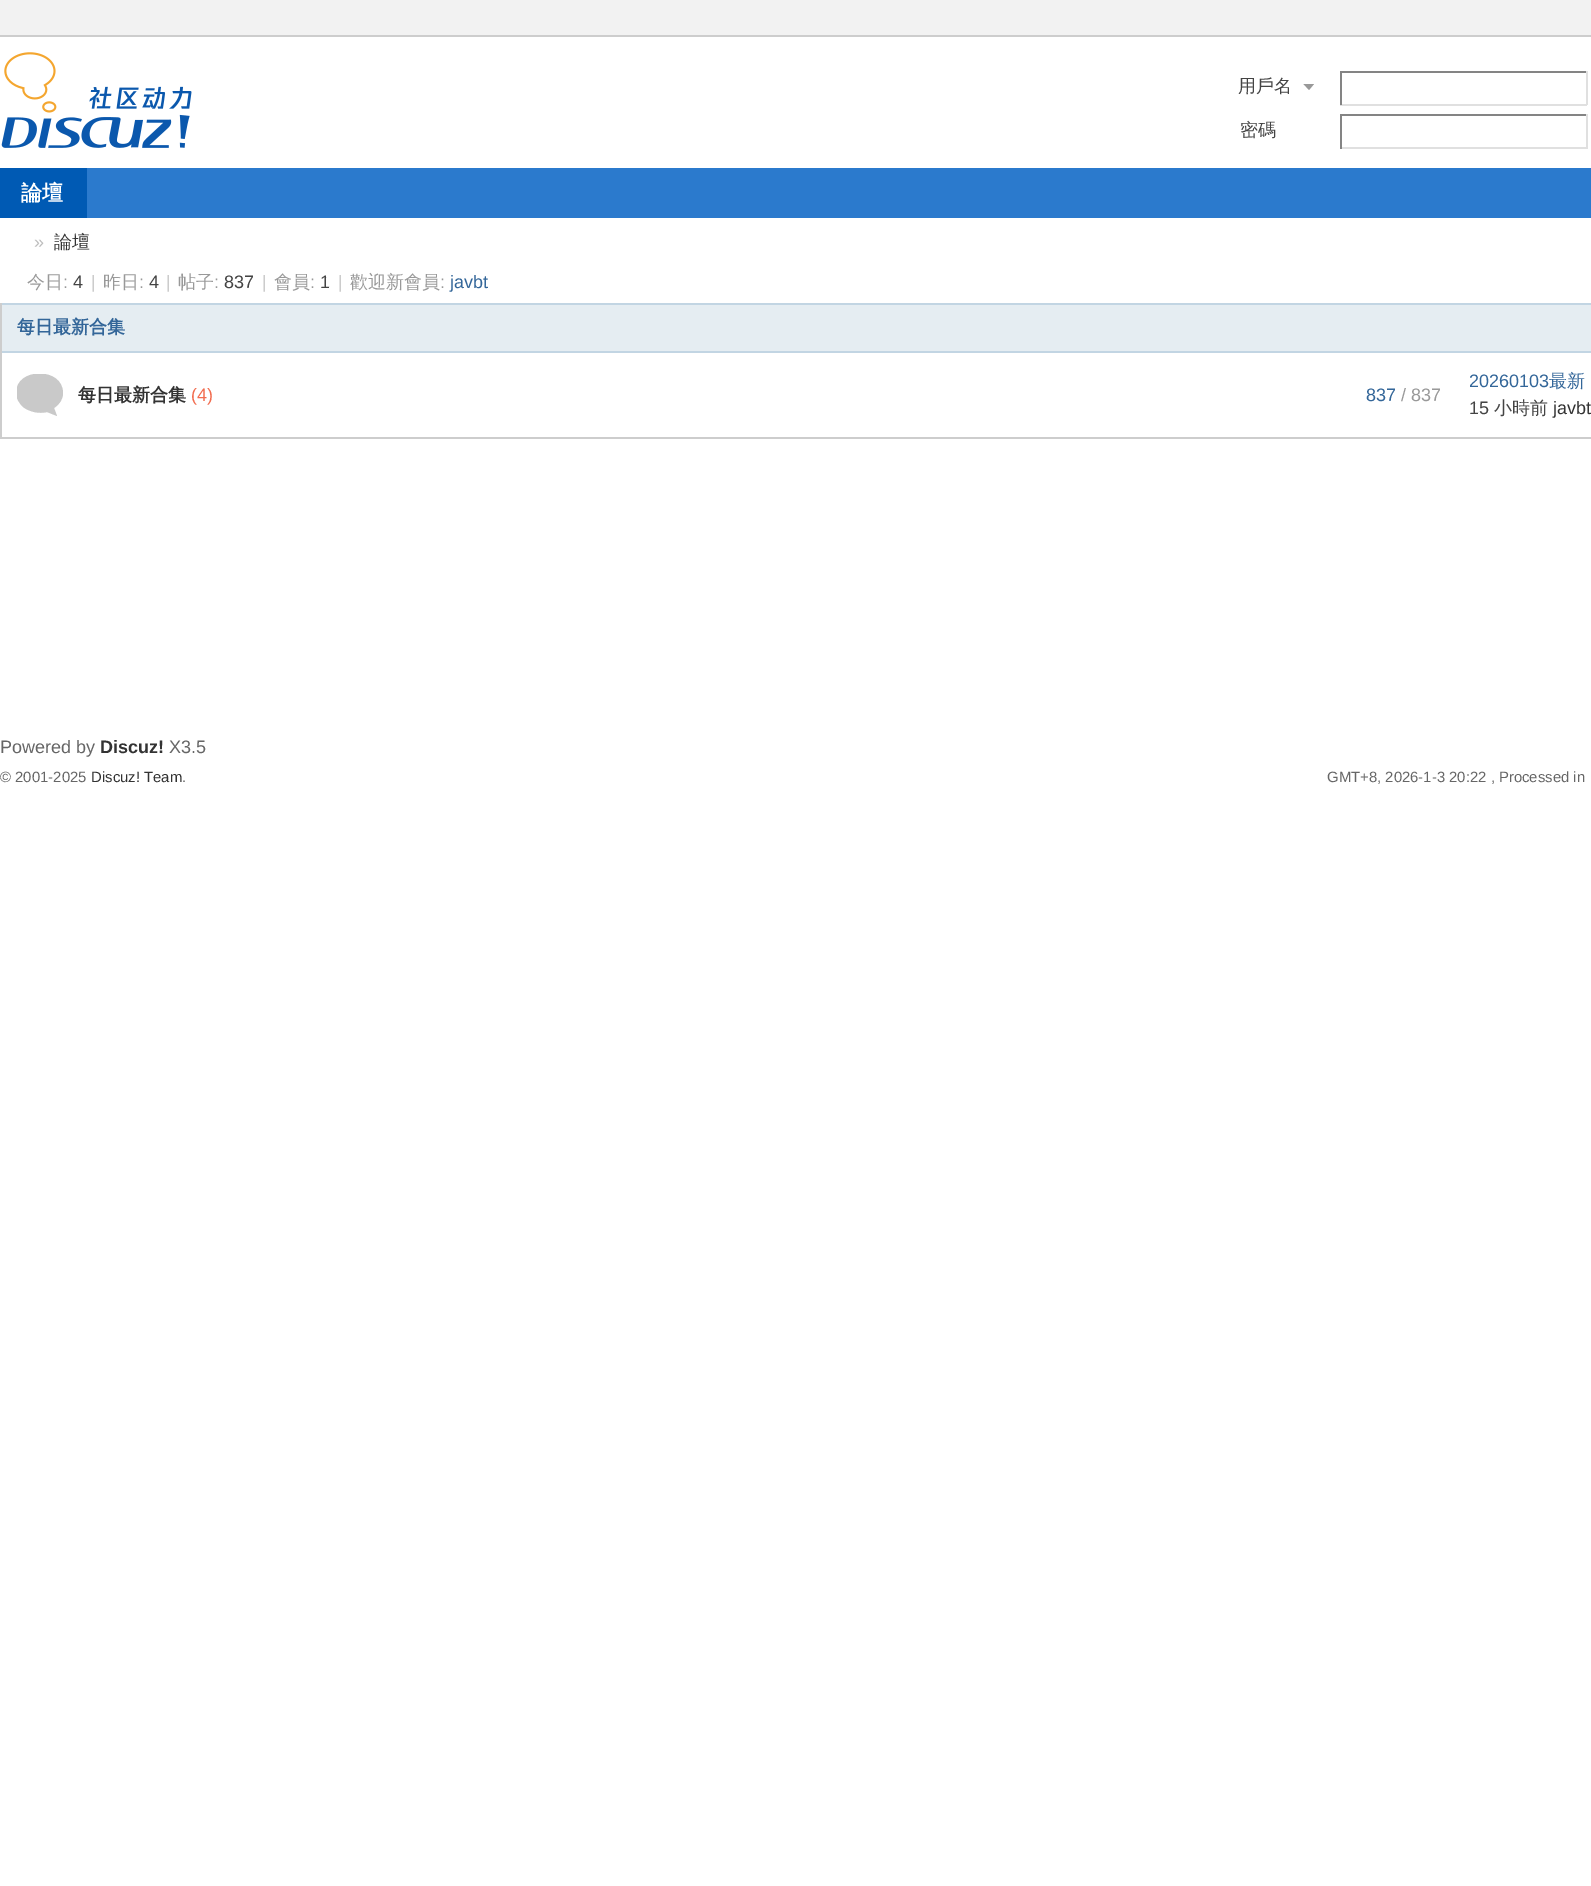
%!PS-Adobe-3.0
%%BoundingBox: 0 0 1591 1886
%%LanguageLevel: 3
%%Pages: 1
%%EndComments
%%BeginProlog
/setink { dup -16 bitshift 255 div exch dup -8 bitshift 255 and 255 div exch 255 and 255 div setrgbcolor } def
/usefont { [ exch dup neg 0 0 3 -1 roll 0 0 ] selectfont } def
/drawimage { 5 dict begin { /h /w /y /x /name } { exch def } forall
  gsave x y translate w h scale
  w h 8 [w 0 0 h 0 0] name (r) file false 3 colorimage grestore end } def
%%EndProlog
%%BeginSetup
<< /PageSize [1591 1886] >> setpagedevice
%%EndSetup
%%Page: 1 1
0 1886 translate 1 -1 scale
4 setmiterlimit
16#FFFFFF setink
0 0 1591 1886 rectfill
16#F2F2F2 setink
0 0 1591 35 rectfill
16#CDCDCD setink
0 35 1591 2 rectfill
(img1.raw) 1 52 191 96 drawimage
16#999999 setink
1314 84 moveto 1303.5 84 lineto 1309 90 lineto closepath fill
/WenQuanYiZenHei-Medium 18 usefont
16#444444 setink
1238 92 moveto (用戶名) show
[
    [1340 71 247 2 16#848484]
    [1586 71 2 34 16#E0E0E0]
    [1340 104 247 2 16#E0E0E0]
    [1340 71 2 34 16#848484]
] { aload pop setink rectfill } forall
16#444444 setink
1240 136 moveto (密碼) show
[
    [1340 114 247 2 16#848484]
    [1586 114 2 35 16#E0E0E0]
    [1340 147 247 2 16#E0E0E0]
    [1340 114 2 35 16#848484]
    [87 168 1504 50 16#2B7ACD]
    [0 168 87 50 16#005AB4]
] { aload pop setink rectfill } forall
/WenQuanYiZenHei-Bold 21 usefont
16#FFFFFF setink
21 200 moveto (論壇) show
/LiberationSans-Regular 18 usefont
16#BDBDBD setink
34 248 moveto (») show
/WenQuanYiZenHei-Medium 18 usefont
16#333333 setink
54 248 moveto (論壇) show
16#999999 setink
27 288 moveto (今日) show
/LiberationSans-Regular 18 usefont
63 288 moveto (:) show
16#444444 setink
73 288 moveto (4) show
16#CCCCCC setink
91 288 moveto (|) show
/WenQuanYiZenHei-Medium 18 usefont
16#999999 setink
103 288 moveto (昨日) show
/LiberationSans-Regular 18 usefont
139 288 moveto (:) show
16#444444 setink
149 288 moveto (4) show
16#CCCCCC setink
166 288 moveto (|) show
/WenQuanYiZenHei-Medium 18 usefont
16#999999 setink
178 288 moveto (帖子) show
/LiberationSans-Regular 18 usefont
214 288 moveto (:) show
16#444444 setink
224 288 moveto (837) show
16#CCCCCC setink
262 288 moveto (|) show
/WenQuanYiZenHei-Medium 18 usefont
16#999999 setink
274 288 moveto (會員) show
/LiberationSans-Regular 18 usefont
310 288 moveto (:) show
16#444444 setink
320 288 moveto (1) show
16#CCCCCC setink
338 288 moveto (|) show
/WenQuanYiZenHei-Medium 18 usefont
16#999999 setink
350 288 moveto (歡迎新會員) show
/LiberationSans-Regular 18 usefont
440 288 moveto (:) show
16#336699 setink
450 288 moveto (javbt) show
[
    [0 437 1591 2 16#CDCDCD]
    [0 303 2 135 16#CDCDCD]
    [2 305 1589 46 16#E5EDF2]
    [2 303 1589 2 16#C2D5E3]
    [2 351 1589 2 16#C2D5E3]
] { aload pop setink rectfill } forall
/WenQuanYiZenHei-Bold 18 usefont
16#336699 setink
17 333 moveto (每日最新合集) show
gsave
17 374 46 43 rectclip
16#C9C9C9 setink
63 393 moveto 63 367 16 367 16 393 curveto 16 398 19 403 23 407 curveto 30 412 39 414 47 412 curveto 57 416 lineto 54 408 lineto 60 404 63 399 63 393 curveto closepath fill
grestore
16#333333 setink
78 401 moveto (每日最新合集) show
/LiberationSans-Regular 18 usefont
16#F26C4F setink
191 401 moveto (\(4\)) show
16#336699 setink
1366 401 moveto (837) show
16#999999 setink
1401 401 moveto (/ 837) show
16#336699 setink
1469 387 moveto (20260103) show
/WenQuanYiZenHei-Medium 18 usefont
1549 387 moveto (最新) show
/LiberationSans-Regular 18 usefont
16#444444 setink
1469 414 moveto (15) show
/WenQuanYiZenHei-Medium 18 usefont
1494 414 moveto (小時前) show
/LiberationSans-Regular 18 usefont
16#333333 setink
1553 414 moveto (javbt) show
16#666666 setink
0 753 moveto (Powered by) show
/LiberationSans-Bold 18 usefont
16#333333 setink
100 753 moveto (Discuz!) show
/LiberationSans-Regular 18 usefont
16#666666 setink
169 753 moveto (X3.5) show
/LiberationSans-Regular 14.9 usefont
0 782 moveto (© 2001-2025) show
16#333333 setink
91 782 moveto (Discuz! Team) show
16#666666 setink
182 782 moveto (.) show
1327 782 moveto (GMT+8, 2026-1-3 20:22 , Processed in) show
showpage
%%EOF
